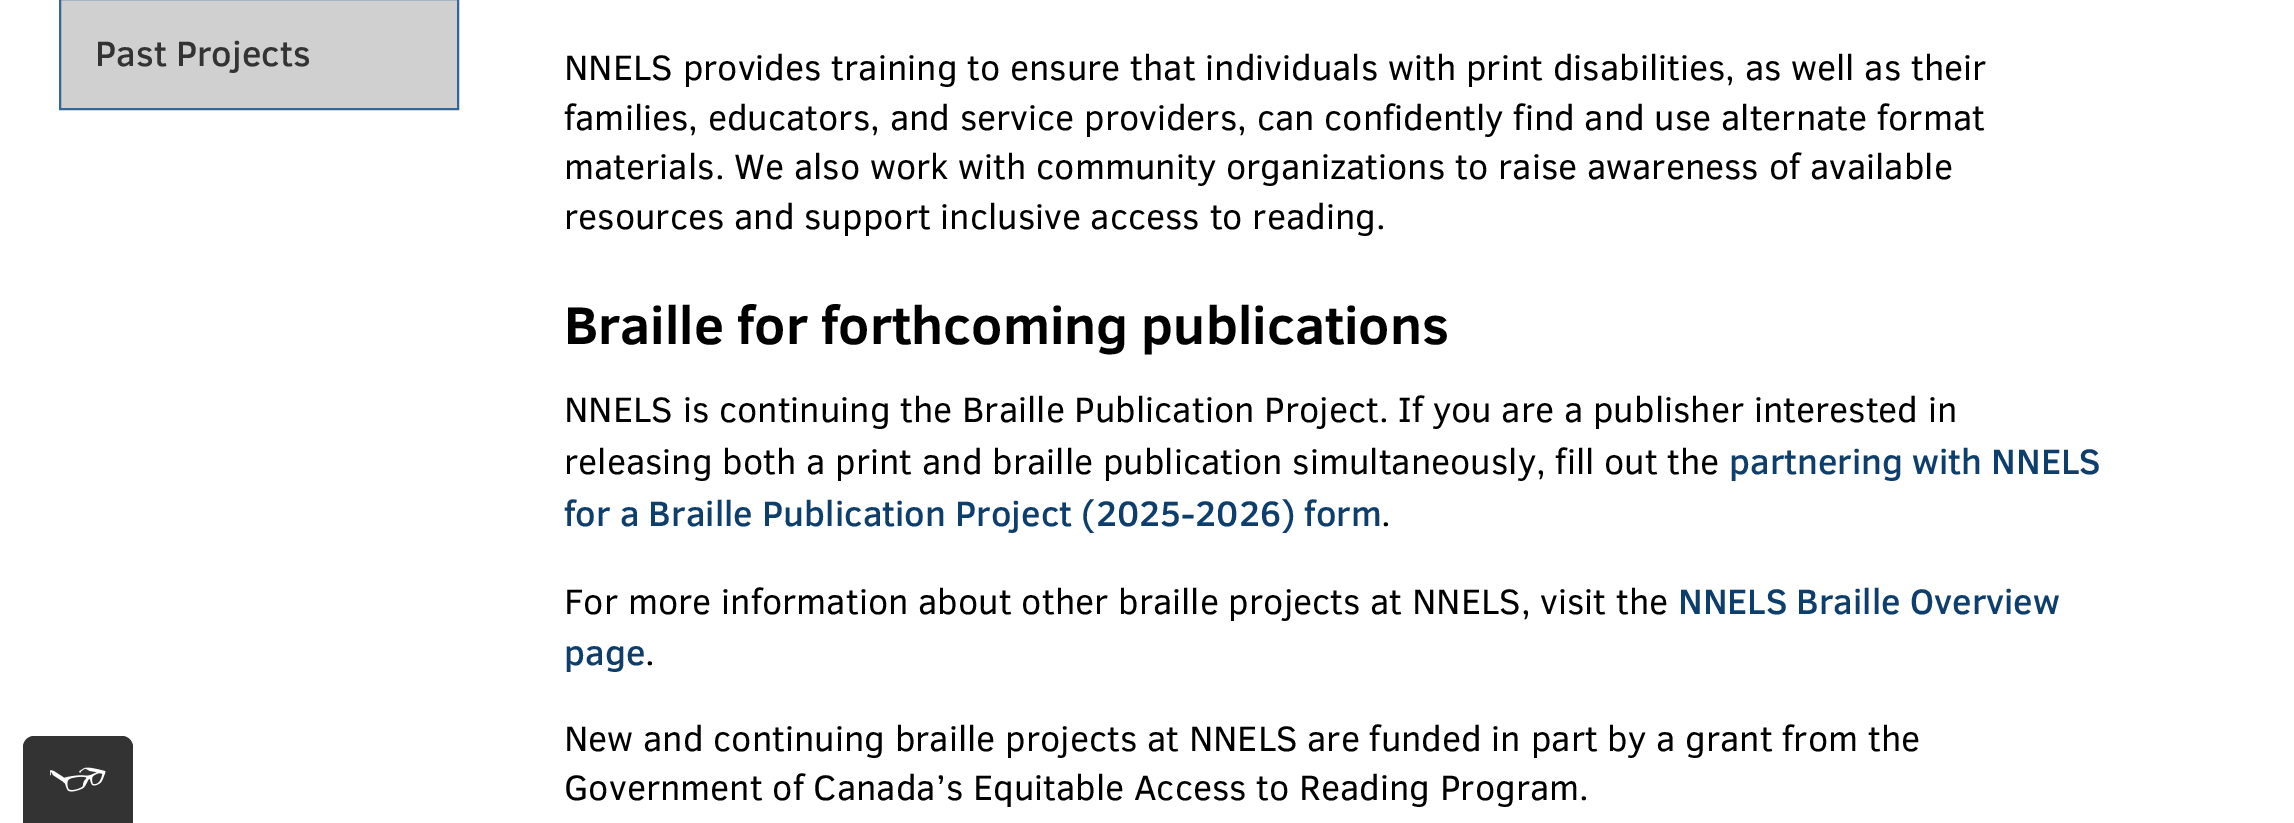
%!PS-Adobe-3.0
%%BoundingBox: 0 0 2294 823
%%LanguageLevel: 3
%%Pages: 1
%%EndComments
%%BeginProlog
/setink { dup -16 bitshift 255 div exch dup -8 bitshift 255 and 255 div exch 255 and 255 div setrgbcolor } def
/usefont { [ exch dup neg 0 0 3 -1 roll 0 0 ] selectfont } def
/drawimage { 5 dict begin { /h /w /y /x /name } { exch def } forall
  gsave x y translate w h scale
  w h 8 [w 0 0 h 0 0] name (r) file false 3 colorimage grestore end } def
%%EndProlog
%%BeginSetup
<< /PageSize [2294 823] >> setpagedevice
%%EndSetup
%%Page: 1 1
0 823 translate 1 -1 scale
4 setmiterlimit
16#FFFFFF setink
0 0 2294 823 rectfill
16#333333 setink
34 736 moveto 122 736 lineto 128 736 133 741 133 747 curveto 133 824 lineto 23 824 lineto 23 747 lineto 23 741 28 736 34 736 curveto closepath fill
(img1.raw) 50 767 56 25 drawimage
16#D0D0D0 setink
60 -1 moveto 458 -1 lineto 458 109 lineto 60 109 lineto closepath gsave fill grestore
16#336699 setink
2 setlinewidth
stroke
/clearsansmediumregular-Medium 36 usefont
16#333333 setink
95 66 moveto (Past Projects) show
/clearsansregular-Regular 36 usefont
16#000000 setink
[
    [(NNELS provides training to ensure that individuals with print disabilities, as well as their) 564 80]
    [(families, educators, and service providers, can confidently find and use alternate format) 564 130]
    [(materials. We also work with community organizations to raise awareness of available) 564 179]
    [(resources and support inclusive access to reading.) 564 229]
] { aload pop moveto show } forall
/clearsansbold-Bold 54 usefont
564 344 moveto (Braille for forthcoming publications) show
/clearsansregular-Regular 36 usefont
564 422 moveto (NNELS is continuing the Braille Publication Project. If you are a publisher interested in) show
564 474 moveto (releasing both a print and braille publication simultaneously, fill out the) show
/clearsansmediumregular-Medium 36 usefont
16#0E3E6C setink
1729 474 moveto (partnering with NNELS) show
564 526 moveto (for a Braille Publication Project \(2025-2026\) form) show
/clearsansregular-Regular 36 usefont
16#000000 setink
1381 526 moveto (.) show
564 614 moveto (For more information about other braille projects at NNELS, visit the) show
/clearsansmediumregular-Medium 36 usefont
16#0E3E6C setink
1678 614 moveto (NNELS Braille Overview) show
564 665 moveto (page) show
/clearsansregular-Regular 36 usefont
16#000000 setink
[
    [(.) 645 665]
    [(New and continuing braille projects at NNELS are funded in part by a grant from the) 564 751]
    [(Government of Canada’s Equitable Access to Reading Program.) 564 800]
] { aload pop moveto show } forall
showpage
%%EOF
